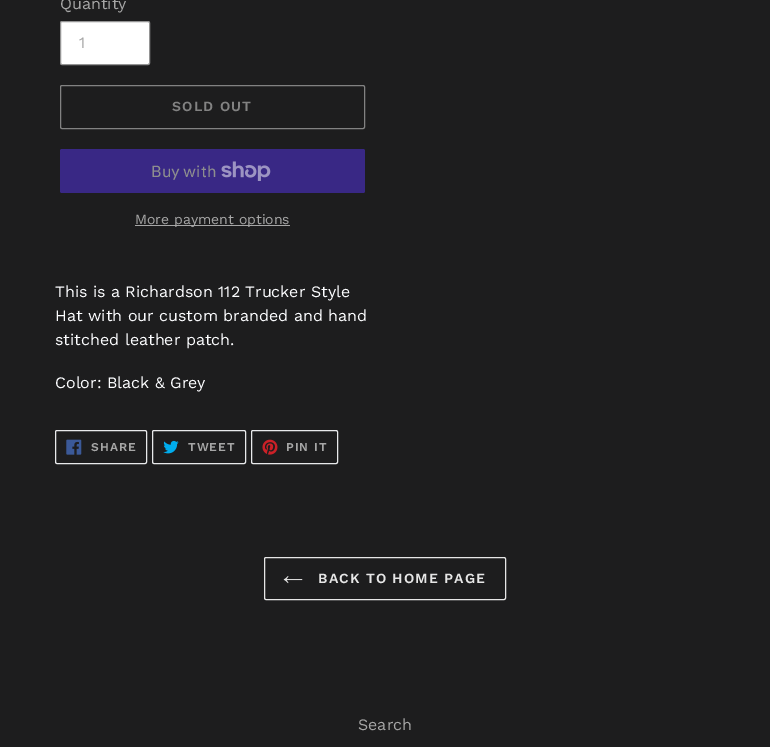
%!PS-Adobe-3.0
%%BoundingBox: 0 0 770 747
%%LanguageLevel: 3
%%Pages: 1
%%EndComments
%%BeginProlog
/setink { dup -16 bitshift 255 div exch dup -8 bitshift 255 and 255 div exch 255 and 255 div setrgbcolor } def
/usefont { [ exch dup neg 0 0 3 -1 roll 0 0 ] selectfont } def
/rrect { 5 dict begin { /r /h /w /y /x } { exch def } forall
  x r add y moveto x w add y 2 copy h add r arct x w add y h add x 1 index r arct
  x y h add x y r arct x y 2 copy exch w add exch r arct closepath end } def
/drawimage { 5 dict begin { /h /w /y /x /name } { exch def } forall
  gsave x y translate w h scale
  w h 8 [w 0 0 h 0 0] name (r) file false 3 colorimage grestore end } def
%%EndProlog
%%BeginSetup
<< /PageSize [770 747] >> setpagedevice
%%EndSetup
%%Page: 1 1
0 747 translate 1 -1 scale
4 setmiterlimit
16#1D1D1E setink
0 0 770 747 rectfill
/WorkSans-Regular 16 usefont
16#A6A6A6 setink
60 9 moveto (Quantity) show
16#FFFFFF setink
60.5 21.5 89 43 1.5 rrect gsave fill grestore
16#949494 setink
stroke
16#A6A6A6 setink
79 48 moveto (1) show
16#828282 setink
60.5 85.5 304 43 1.5 rrect stroke
/WorkSans-SemiBold 14 usefont
172 111 moveto 1.1 0 (SOLD OUT) ashow
16#392885 setink
60 149 305 44 2 rrect fill
/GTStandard-Regular 16 usefont
16#8E8E8F setink
151 177 moveto (Buy with) show
(img1.raw) 221 161 50 20 drawimage
16#A6A6A6 setink
135 225 155 1 rectfill
/WorkSans-Regular 14 usefont
135 224 moveto (More payment options) show
/WorkSans-Regular 16 usefont
16#FCFDFF setink
[
    [(This is a Richardson 112 Trucker Style) 55 297]
    [(Hat with our custom branded and hand) 55 321]
    [(stitched leather patch.) 55 345]
    [(Color: Black & Grey) 55 388]
] { aload pop moveto show } forall
16#E8E9EB setink
55.5 430.5 91 33 1.5 rrect stroke
(img2.raw) 66 439 16 16 drawimage
/WorkSans-SemiBold 12 usefont
16#A6A6A6 setink
91 451 moveto 1 0 (SHARE) ashow
16#E8E9EB setink
152.5 430.5 93 33 1.5 rrect stroke
(img3.raw) 163 440 16 14 drawimage
16#A6A6A6 setink
188 451 moveto 1 0 (TWEET) ashow
16#E8E9EB setink
251.5 430.5 86 33 1.5 rrect stroke
(img4.raw) 262 439 16 16 drawimage
16#A6A6A6 setink
286 451 moveto 1 0 (PIN IT) ashow
16#E6E6E6 setink
264.5 557.5 241 42 1.5 rrect stroke
(img5.raw) 283 576 20 8 drawimage
/WorkSans-SemiBold 14 usefont
318 583 moveto 1.1 0 (BACK TO HOME PAGE) ashow
/WorkSans-Regular 16 usefont
16#A6A6A6 setink
358 730 moveto (Search) show
showpage
%%EOF
